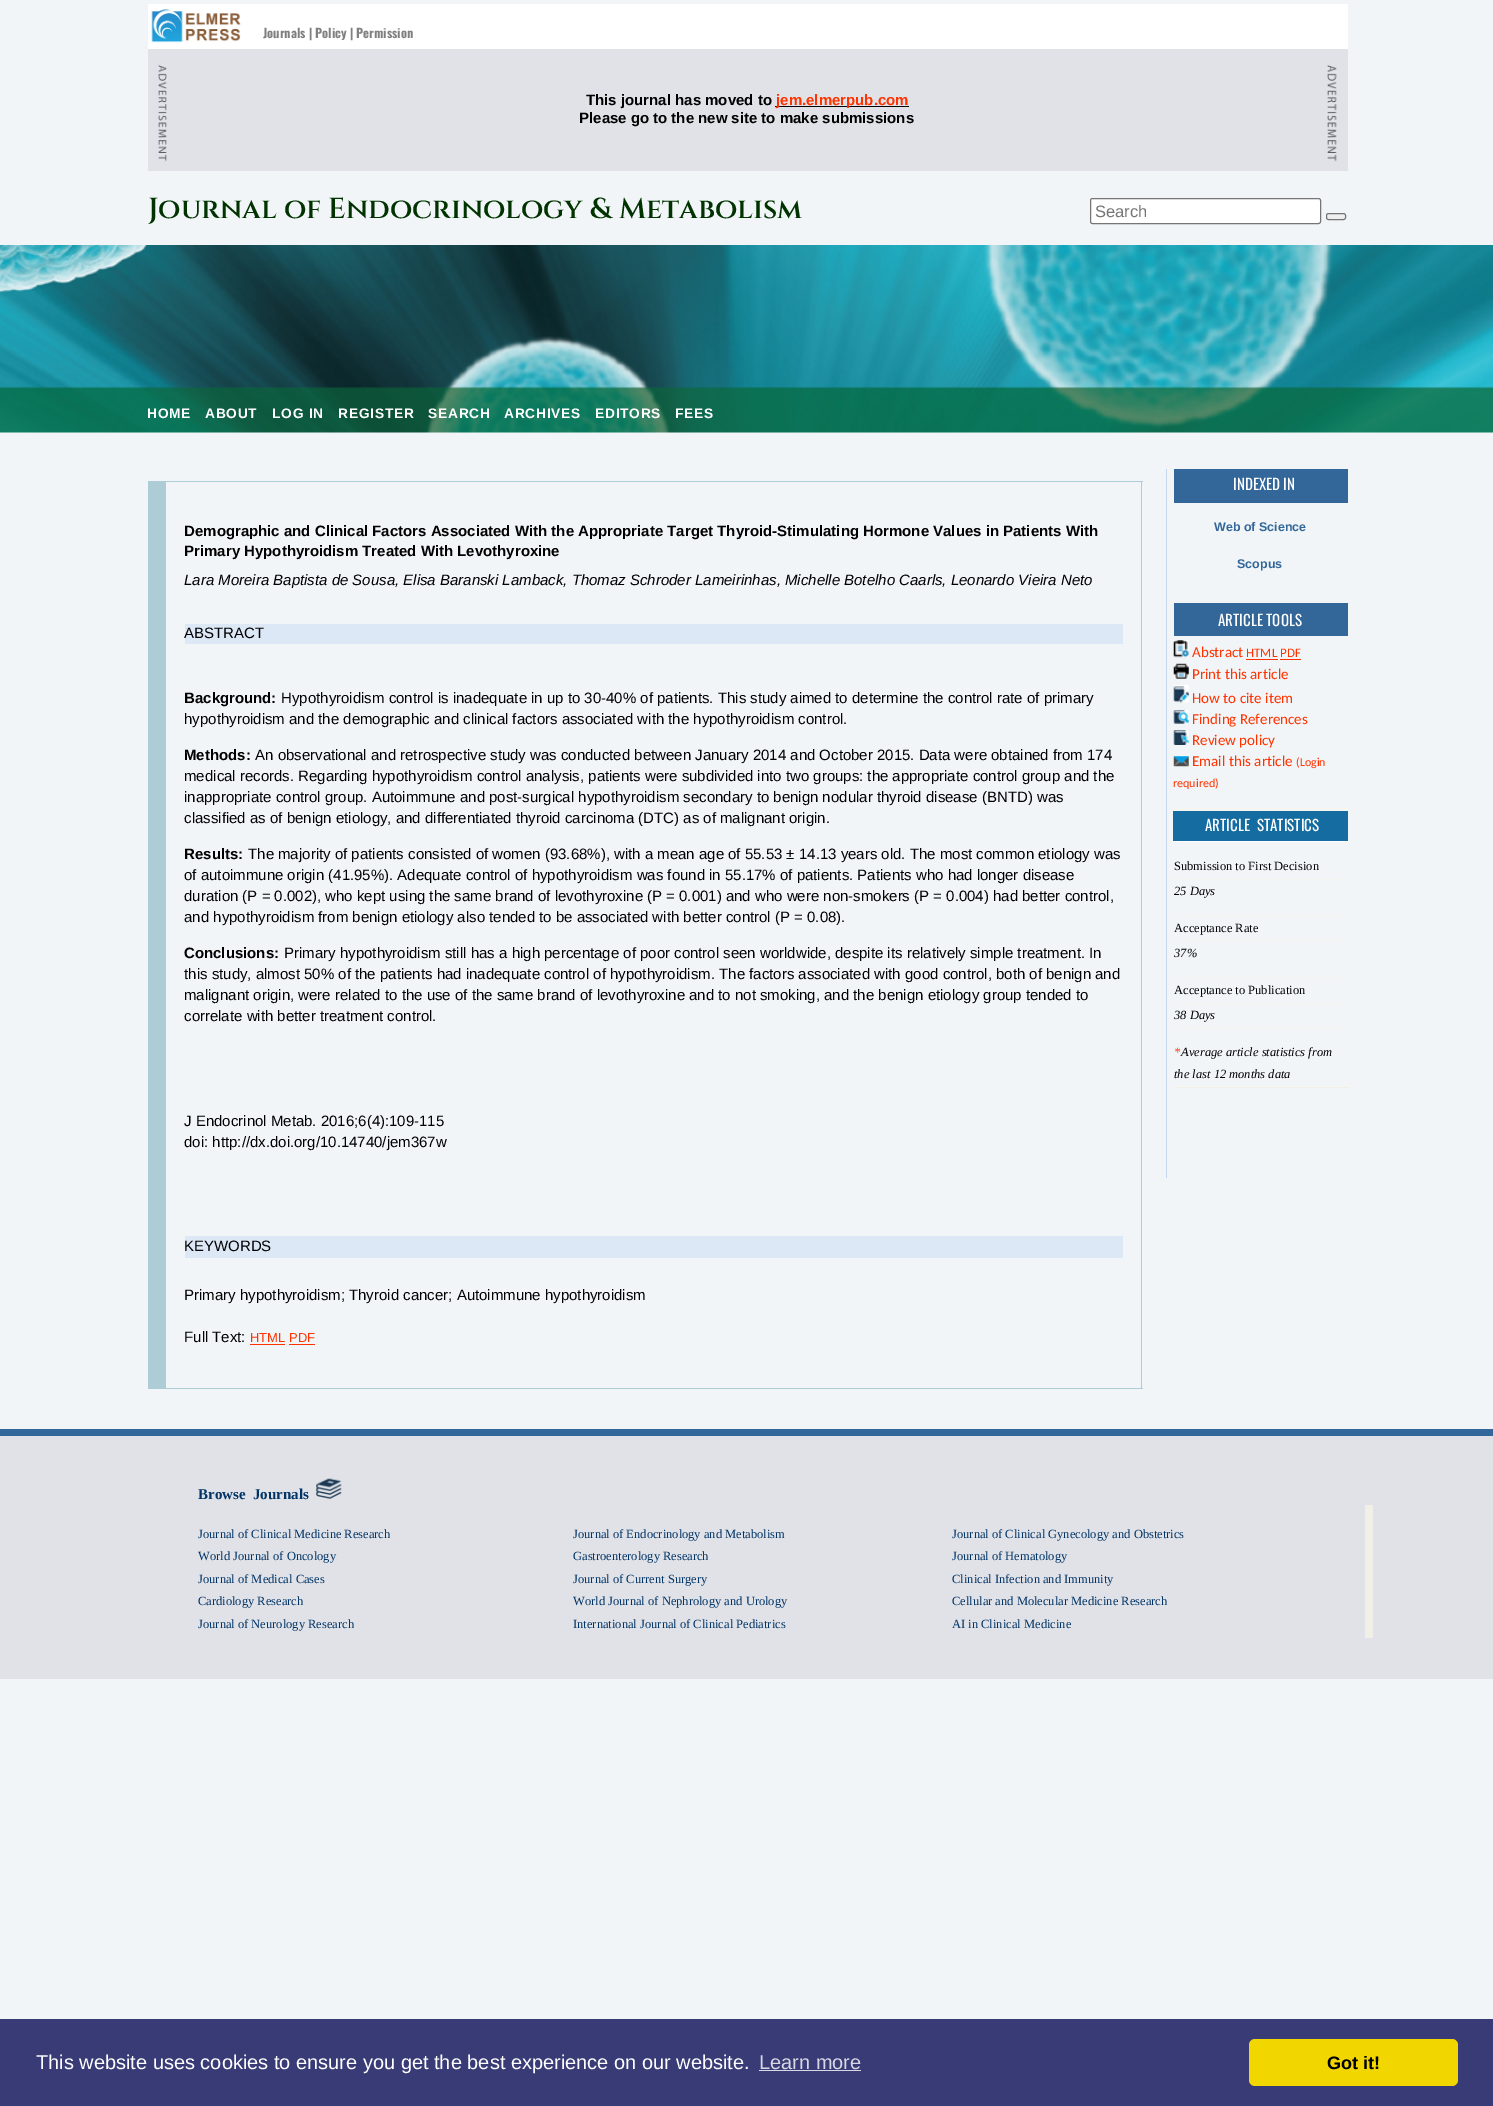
%!PS-Adobe-3.0
%%BoundingBox: 0 0 1493 2106
%%LanguageLevel: 3
%%Pages: 1
%%EndComments
%%BeginProlog
/setink { dup -16 bitshift 255 div exch dup -8 bitshift 255 and 255 div exch 255 and 255 div setrgbcolor } def
/usefont { [ exch dup neg 0 0 3 -1 roll 0 0 ] selectfont } def
/rrect { 5 dict begin { /r /h /w /y /x } { exch def } forall
  x r add y moveto x w add y 2 copy h add r arct x w add y h add x 1 index r arct
  x y h add x y r arct x y 2 copy exch w add exch r arct closepath end } def
/drawimage { 5 dict begin { /h /w /y /x /name } { exch def } forall
  gsave x y translate w h scale
  w h 8 [w 0 0 h 0 0] name (r) file false 3 colorimage grestore end } def
%%EndProlog
%%BeginSetup
<< /PageSize [1493 2106] >> setpagedevice
%%EndSetup
%%Page: 1 1
0 2106 translate 1 -1 scale
4 setmiterlimit
16#F1F5F8 setink
0 0 1493 2106 rectfill
(img1.raw) 0 245 1493 188 drawimage
16#FFFFFF setink
148 4 1200 45 rectfill
(img2.raw) 151 9 90 34 drawimage
/Oswald-Bold 12.5 usefont
16#808080 setink
263 38 moveto (Journals | Policy | Permission) show
16#E0E2E7 setink
148 49 1200 122 rectfill
(img3.raw) 158 65 9 97 drawimage
/LiberationSans-Bold 15 usefont
16#000000 setink
586 105 moveto (This journal has moved to) show
775 106 134 1 rectfill
16#FF3300 setink
776 105 moveto (jem.elmerpub.com) show
16#000000 setink
579 123 moveto (Please go to the new site to make submissions) show
(img4.raw) 1327 65 10 97 drawimage
/Cinzel-SemiBold 28.75 usefont
16#003300 setink
148 218 moveto (Journal of Endocrinology & Metabolism) show
16#FFFFFF setink
1090.5 198.5 230 25 2 rrect gsave fill grestore
16#767676 setink
stroke
/LiberationSans-Regular 16.5 usefont
16#757575 setink
1095 217 moveto (Search) show
16#EFEFEF setink
1326.5 213.5 19 6 2 rrect gsave fill grestore
16#767676 setink
stroke
gsave
148 388 995 1041 rectclip
/LiberationSans-Bold 13.75 usefont
16#FFFFFF setink
147 418 moveto 0.75 0 (HOME) ashow
grestore
/LiberationSans-Bold 13.75 usefont
16#FFFFFF setink
205 418 moveto 0.75 0 (ABOUT) ashow
272 418 moveto 0.75 0 (LOG IN) ashow
338 418 moveto 0.75 0 (REGISTER) ashow
428 418 moveto 0.75 0 (SEARCH) ashow
504 418 moveto 0.75 0 (ARCHIVES) ashow
595 418 moveto 0.75 0 (EDITORS) ashow
675 418 moveto 0.75 0 (FEES) ashow
[
    [166 481 977 1 16#ADCCD6]
    [1141 481 1 908 16#ADCCD6]
    [166 1388 977 1 16#ADCCD6]
    [148 481 18 908 16#ADCCD6]
] { aload pop setink rectfill } forall
/LiberationSans-Bold 15 usefont
16#000000 setink
184 536 moveto (Demographic and Clinical Factors Associated With the Appropriate Target Thyroid-Stimulating Hormone Values in Patients With) show
184 556 moveto (Primary Hypothyroidism Treated With Levothyroxine) show
/LiberationSans-Italic 15 usefont
184 585 moveto (Lara Moreira Baptista de Sousa, Elisa Baranski Lamback, Thomaz Schroder Lameirinhas, Michelle Botelho Caarls, Leonardo Vieira Neto) show
16#DDE8F7 setink
185 624 938 20 rectfill
/LiberationSans-Regular 15 usefont
16#000000 setink
184 638 moveto (ABSTRACT) show
/LiberationSans-Bold 15 usefont
184 703 moveto (Background:) show
/LiberationSans-Regular 15 usefont
281 703 moveto (Hypothyroidism control is inadequate in up to 30-40% of patients. This study aimed to determine the control rate of primary) show
184 724 moveto (hypothyroidism and the demographic and clinical factors associated with the hypothyroidism control.) show
/LiberationSans-Bold 15 usefont
184 760 moveto (Methods:) show
/LiberationSans-Regular 15 usefont
[
    [(An observational and retrospective study was conducted between January 2014 and October 2015. Data were obtained from 174) 255 760]
    [(medical records. Regarding hypothyroidism control analysis, patients were subdivided into two groups: the appropriate control group and the) 184 781]
    [(inappropriate control group. Autoimmune and post-surgical hypothyroidism secondary to benign nodular thyroid disease \(BNTD\) was) 184 802]
    [(classified as of benign etiology, and differentiated thyroid carcinoma \(DTC\) as of malignant origin.) 184 823]
] { aload pop moveto show } forall
/LiberationSans-Bold 15 usefont
184 859 moveto (Results:) show
/LiberationSans-Regular 15 usefont
[
    [(The majority of patients consisted of women \(93.68%\), with a mean age of 55.53 ± 14.13 years old. The most common etiology was) 248 859]
    [(of autoimmune origin \(41.95%\). Adequate control of hypothyroidism was found in 55.17% of patients. Patients who had longer disease) 184 880]
    [(duration \(P = 0.002\), who kept using the same brand of levothyroxine \(P = 0.001\) and who were non-smokers \(P = 0.004\) had better control,) 184 901]
    [(and hypothyroidism from benign etiology also tended to be associated with better control \(P = 0.08\).) 184 922]
] { aload pop moveto show } forall
/LiberationSans-Bold 15 usefont
184 958 moveto (Conclusions:) show
/LiberationSans-Regular 15 usefont
[
    [(Primary hypothyroidism still has a high percentage of poor control seen worldwide, despite its relatively simple treatment. In) 284 958]
    [(this study, almost 50% of the patients had inadequate control of hypothyroidism. The factors associated with good control, both of benign and) 184 979]
    [(malignant origin, were related to the use of the same brand of levothyroxine and to not smoking, and the benign etiology group tended to) 184 1000]
    [(correlate with better treatment control.) 184 1021]
    [(J Endocrinol Metab. 2016;6\(4\):109-115) 184 1126]
    [(doi: http://dx.doi.org/10.14740/jem367w) 184 1147]
] { aload pop moveto show } forall
16#DDE8F7 setink
185 1236 938 22 rectfill
16#000000 setink
[
    [(KEYWORDS) 184 1251]
    [(Primary hypothyroidism; Thyroid cancer; Autoimmune hypothyroidism) 184 1300]
    [(Full Text:) 184 1342]
] { aload pop moveto show } forall
/LiberationSans-Regular 13 usefont
16#FF3300 setink
250 1342 moveto (HTML) show
250 1344 35 1 rectfill
289 1342 moveto (PDF) show
[
    [289 1344 26 1 16#FF3300]
    [1166 469 1 709 16#C4D6F2]
    [1174 469 174 34 16#336699]
] { aload pop setink rectfill } forall
/Oswald-Regular 15 usefont
16#FFFFFF setink
1233 490 moveto (INDEXED IN) show
/LiberationSans-Bold 12.5 usefont
16#336699 setink
1214 531 moveto (Web of Science) show
1237 568 moveto (Scopus) show
1174 603 174 33 rectfill
/Oswald-Regular 15 usefont
16#FFFFFF setink
1218 626 moveto (ARTICLE TOOLS) show
(img5.raw) 1173 640 16 18 drawimage
/Carlito-Regular 15 usefont
16#FF3300 setink
1192 657 moveto (Abstract) show
/Carlito-Regular 13 usefont
1246 657 moveto (HTML) show
1246 659 32 1 rectfill
1280 657 moveto (PDF) show
1280 659 21 1 rectfill
(img6.raw) 1173 663 16 16 drawimage
/Carlito-Regular 15 usefont
1192 679 moveto (Print this article) show
(img7.raw) 1173 685 16 18 drawimage
1192 703 moveto (How to cite item) show
(img8.raw) 1173 710 16 14 drawimage
1192 724 moveto (Finding References) show
(img9.raw) 1173 730 16 15 drawimage
1192 745 moveto (Review policy) show
(img10.raw) 1173 756 16 11 drawimage
1192 766 moveto (Email this article) show
/Carlito-Regular 12 usefont
1296 766 moveto (\(Login) show
1173 787 moveto (required\)) show
[
    [1174 1087 174 1 16#F0F0E8]
    [1173 811 175 30 16#156CA1]
    [1173 841 175 1 16#FFFFFF]
    [1173 808 175 3 16#F5F5F1]
] { aload pop setink rectfill } forall
/Oswald-Regular 15 usefont
16#FFFFFF setink
1205 831 moveto (ARTICLE  STATISTICS) show
/LiberationSerif-Regular 12.5 usefont
16#000000 setink
1174 870 moveto (Submission to First Decision) show
16#F5F5F1 setink
1173 879 175 1 rectfill
/LiberationSerif-Italic 12.5 usefont
16#000000 setink
1174 895 moveto (25 Days) show
16#F5F5F1 setink
1173 916 175 1 rectfill
/LiberationSerif-Regular 12.5 usefont
16#000000 setink
1174 932 moveto (Acceptance Rate) show
16#F5F5F1 setink
1173 940 175 1 rectfill
/LiberationSerif-Italic 12.5 usefont
16#000000 setink
1174 957 moveto (37%) show
16#F5F5F1 setink
1173 978 175 1 rectfill
/LiberationSerif-Regular 12.5 usefont
16#000000 setink
1174 994 moveto (Acceptance to Publication) show
16#F5F5F1 setink
1173 1003 175 1 rectfill
/LiberationSerif-Italic 12.5 usefont
16#000000 setink
1174 1019 moveto (38 Days) show
16#F5F5F1 setink
1173 1028 175 1 rectfill
1173 1086 175 1 rectfill
16#FF3300 setink
1174 1056 moveto (*) show
16#000000 setink
1181 1056 moveto (Average article statistics from) show
1174 1078 moveto (the last 12 months data) show
[
    [0 1429 1493 7 16#336699]
    [0 1436 1493 243 16#E0E2E7]
    [1365 1505 8 133 16#F0F0E8]
] { aload pop setink rectfill } forall
/LiberationSerif-Bold 15 usefont
16#003366 setink
198 1499 moveto (Browse  Journals) show
(img11.raw) 316 1478 26 21 drawimage
/LiberationSerif-Regular 12.5 usefont
[
    [(Journal of Clinical Medicine Research) 198 1538]
    [(Journal of Endocrinology and Metabolism) 573 1538]
    [(Journal of Clinical Gynecology and Obstetrics) 952 1538]
    [(World Journal of Oncology) 198 1560]
    [(Gastroenterology Research) 573 1560]
    [(Journal of Hematology) 952 1560]
    [(Journal of Medical Cases) 198 1583]
    [(Journal of Current Surgery) 573 1583]
    [(Clinical Infection and Immunity) 952 1583]
    [(Cardiology Research) 198 1605]
    [(World Journal of Nephrology and Urology) 573 1605]
    [(Cellular and Molecular Medicine Research) 952 1605]
    [(Journal of Neurology Research) 198 1628]
    [(International Journal of Clinical Pediatrics) 573 1628]
    [(AI in Clinical Medicine) 952 1628]
] { aload pop moveto show } forall
16#383B75 setink
0 2019 1493 87 rectfill
/LiberationSans-Regular 20 usefont
16#FFFFFF setink
36 2069 moveto (This website uses cookies to ensure you get the best experience on our website.) show
16#D7D8E3 setink
759 2069 moveto (Learn more) show
759 2070 102 1 rectfill
16#F1D600 setink
1249 2039 209 47 6 rrect fill
/LiberationSans-Bold 18 usefont
16#000000 setink
1327 2069 moveto (Got it!) show
showpage
%%EOF
